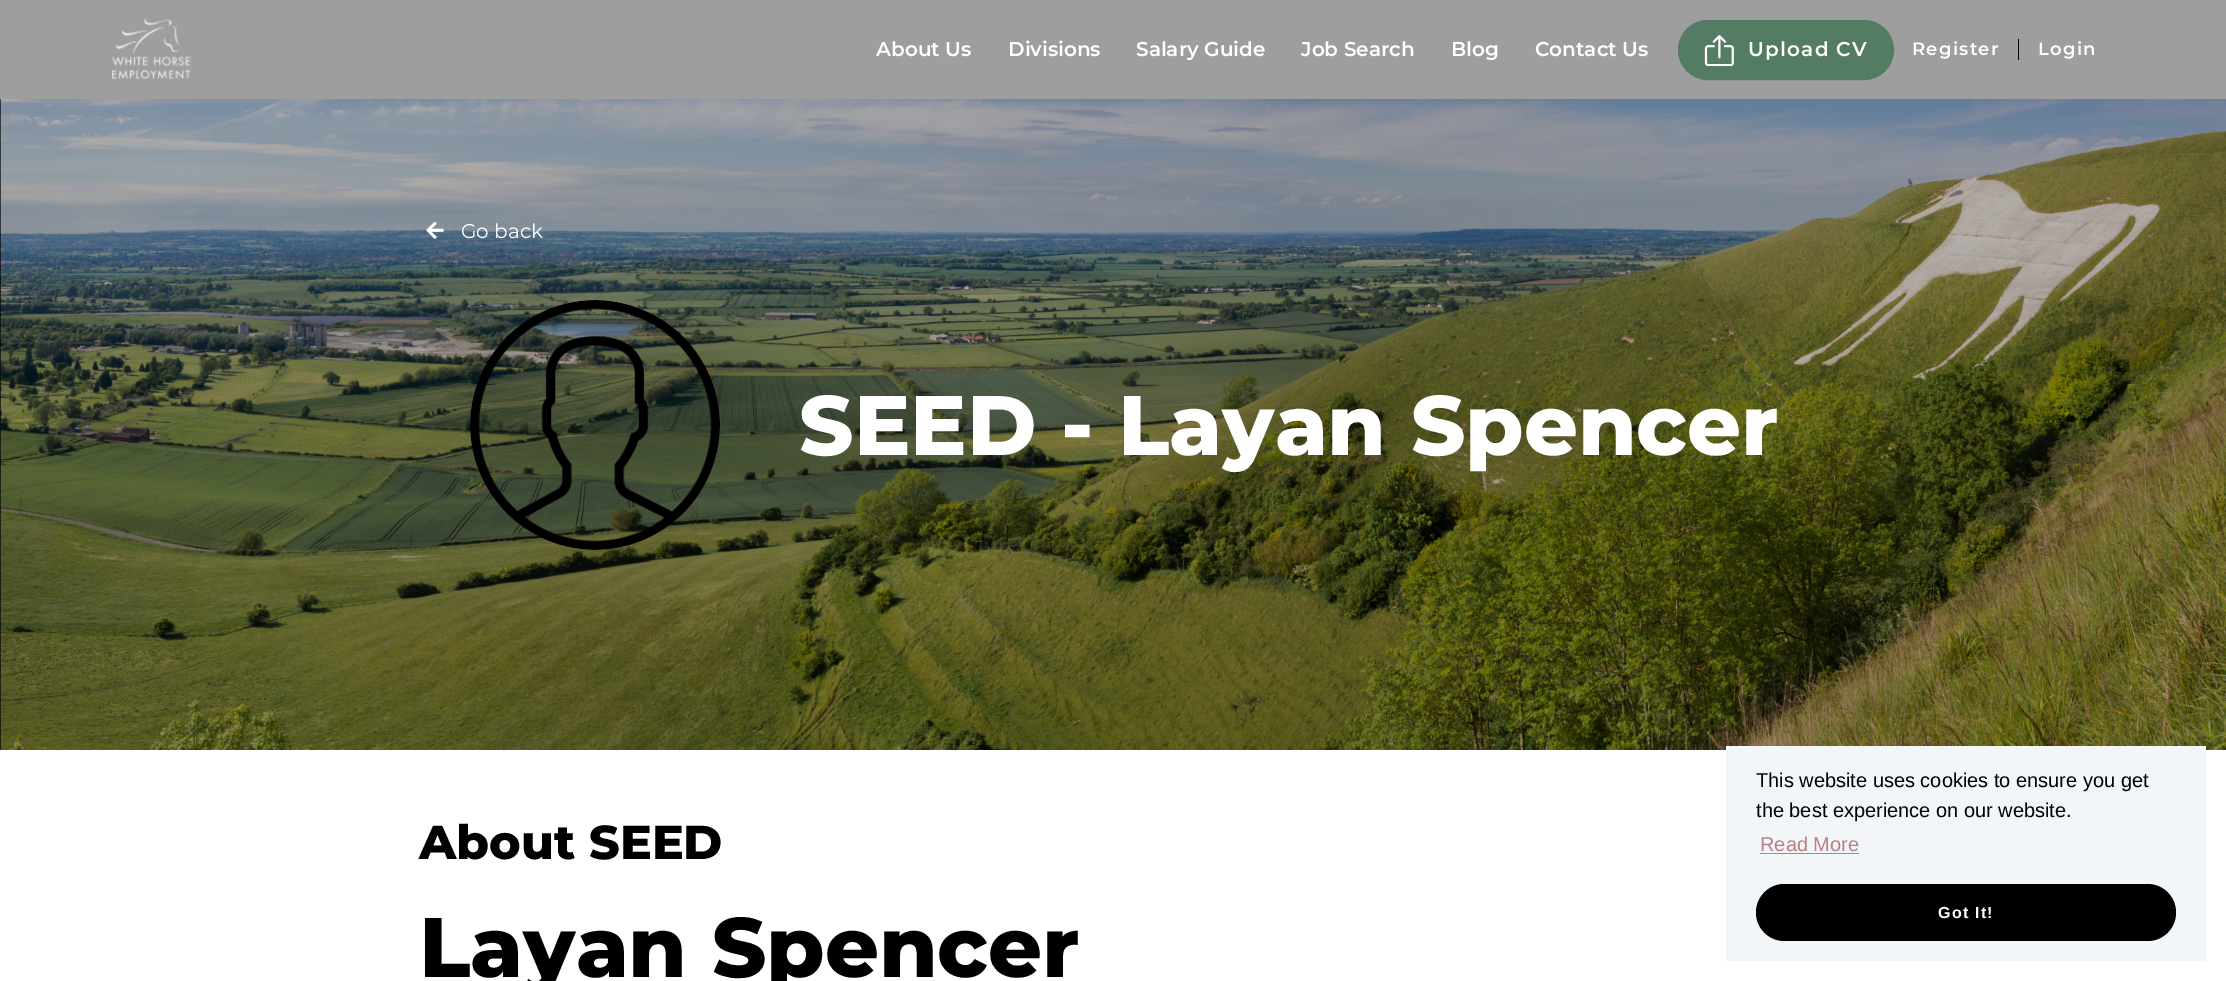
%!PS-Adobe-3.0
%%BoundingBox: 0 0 2226 981
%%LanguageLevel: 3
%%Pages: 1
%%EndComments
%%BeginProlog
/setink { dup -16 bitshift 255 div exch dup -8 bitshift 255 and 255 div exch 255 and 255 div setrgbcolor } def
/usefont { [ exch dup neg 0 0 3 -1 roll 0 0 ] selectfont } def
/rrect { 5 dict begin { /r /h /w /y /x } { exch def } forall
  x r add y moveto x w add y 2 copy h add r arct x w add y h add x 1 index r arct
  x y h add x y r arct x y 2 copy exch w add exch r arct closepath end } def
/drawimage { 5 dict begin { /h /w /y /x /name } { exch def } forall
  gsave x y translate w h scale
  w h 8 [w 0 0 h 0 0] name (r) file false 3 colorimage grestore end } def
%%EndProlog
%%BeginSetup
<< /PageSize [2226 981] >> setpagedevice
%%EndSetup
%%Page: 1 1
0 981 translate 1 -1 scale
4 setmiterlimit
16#FFFFFF setink
0 0 2226 981 rectfill
16#9E9E9E setink
0 0 2226 99 rectfill
(img1.raw) 112 18 79 61 drawimage
/Montserrat-SemiBold 20 usefont
16#FFFFFF setink
[
    [(About Us) 876 56]
    [(Divisions) 1008 56]
    [(Salary Guide) 1136 56]
    [(Job Search) 1301 56]
    [(Blog) 1451 56]
    [(Contact Us) 1535 56]
] { aload pop moveto show } forall
16#547C65 setink
1678.5 20.5 215 59 29.5 rrect gsave fill grestore
stroke
(img2.raw) 1704 35 30 31 drawimage
16#FFFFFF setink
1748 56 moveto 1.25 0 (Upload CV) ashow
/Montserrat-SemiBold 18 usefont
1912 55 moveto 1.25 0 (Register) ashow
16#000000 setink
2018 39 1 21 rectfill
16#FFFFFF setink
2038 55 moveto 1.25 0 (Login) ashow
16#000000 setink
0 99 2226 651 rectfill
(img3.raw) 0 99 2226 651 drawimage
(img4.raw) 426 221 18 18 drawimage
/Montserrat-Thin 20 usefont
16#FFFFFF setink
461 238 moveto (Go back) show
(img5.raw) 470 300 250 250 drawimage
/Montserrat-ExtraBold 84.25 usefont
799 455 moveto (SEED - Layan Spencer) show
/Montserrat-ExtraBold 47.5 usefont
16#000000 setink
419 859 moveto (About SEED) show
/Montserrat-ExtraBold 84.25 usefont
419 977 moveto (Layan Spencer) show
16#F3F6F9 setink
1726 746 480 215 rectfill
/LiberationSans-Regular 20 usefont
16#000000 setink
1756 787 moveto (This website uses cookies to ensure you get) show
1756 817 moveto (the best experience on our website.) show
16#B78086 setink
1760 851 moveto (Read More) show
1760 853 99 1 rectfill
16#000000 setink
1756 884 420 57 28.5 rrect fill
/LiberationSans-Bold 16 usefont
16#FFFFFF setink
1938 918 moveto 1.25 0 (Got It!) ashow
showpage
%%EOF
